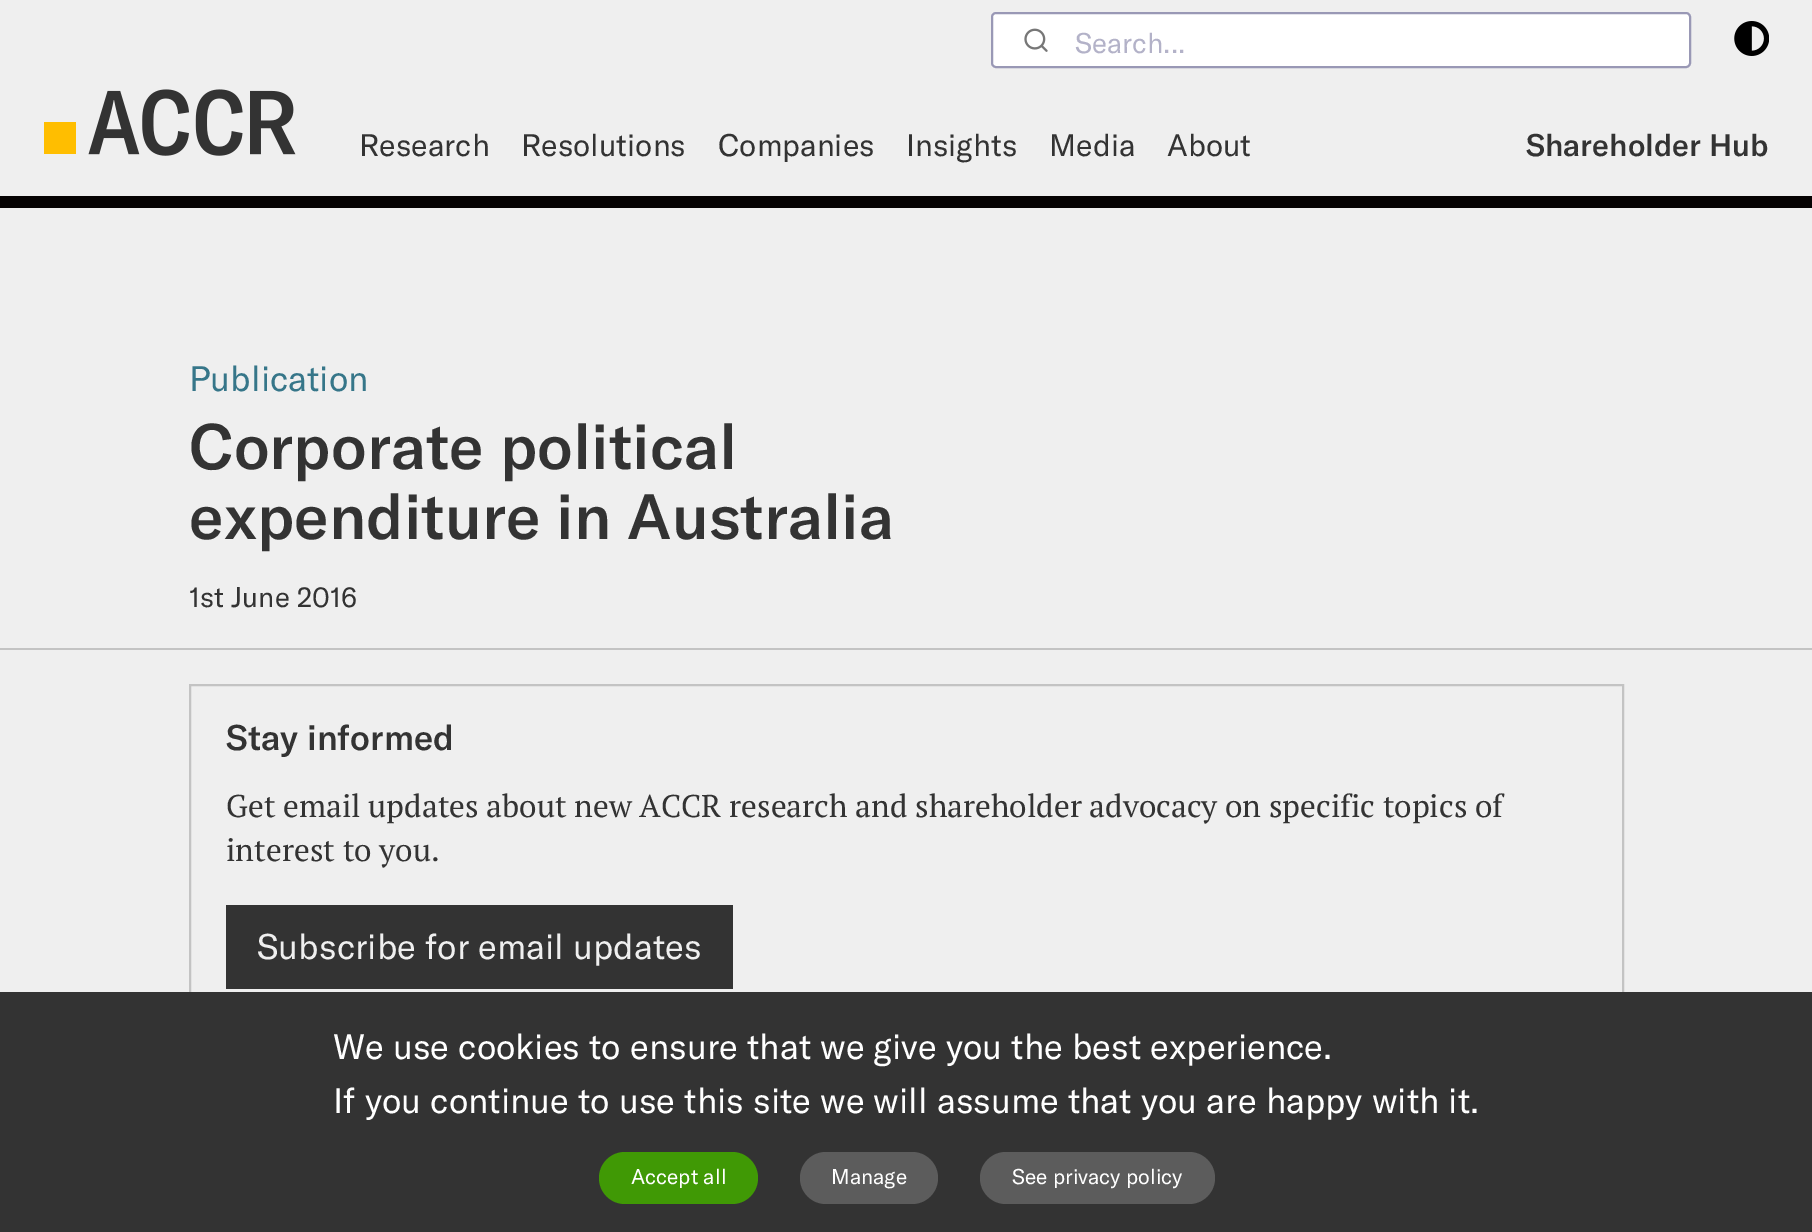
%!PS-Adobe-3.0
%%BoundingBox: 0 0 1812 1232
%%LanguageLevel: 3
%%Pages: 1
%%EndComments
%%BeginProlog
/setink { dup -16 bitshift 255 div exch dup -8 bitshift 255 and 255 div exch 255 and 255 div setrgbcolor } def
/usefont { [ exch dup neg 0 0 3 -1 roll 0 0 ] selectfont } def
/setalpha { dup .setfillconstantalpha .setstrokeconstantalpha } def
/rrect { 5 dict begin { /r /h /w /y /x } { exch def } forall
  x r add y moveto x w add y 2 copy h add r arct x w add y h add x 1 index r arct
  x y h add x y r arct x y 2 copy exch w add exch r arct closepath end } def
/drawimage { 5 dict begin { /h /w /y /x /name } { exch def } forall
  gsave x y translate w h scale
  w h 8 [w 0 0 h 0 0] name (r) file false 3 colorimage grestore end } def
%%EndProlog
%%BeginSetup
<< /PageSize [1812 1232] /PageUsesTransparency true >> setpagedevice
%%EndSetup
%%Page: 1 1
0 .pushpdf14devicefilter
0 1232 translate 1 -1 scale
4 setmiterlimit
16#EFEFEF setink
0 0 1812 1232 rectfill
16#FFFFFF setink
991 12 700 56 5 rrect fill
0.8 setalpha
16#807EA3 setink
2 setlinewidth
992 13 698 54 4 rrect stroke
1 setalpha
(img1.raw) 1024 28 24 24 drawimage
/GTAmerica-Regular 28 usefont
16#B3B2C8 setink
1075 53 moveto (Search...) show
(img2.raw) 1734 21 35 35 drawimage
(img3.raw) 44 89 252 67 drawimage
/GTAmerica-Regular 30.75 usefont
16#333333 setink
[
    [(Research) 359 156]
    [(Resolutions) 521 156]
    [(Companies) 718 156]
    [(Insights) 906 156]
    [(Media) 1049 156]
    [(About) 1167 156]
] { aload pop moveto show } forall
/GTAmerica-Medium 30.75 usefont
1526 156 moveto (Shareholder Hub) show
16#060303 setink
0 196 1812 12 rectfill
16#C3C3C3 setink
0 648 1812 2 rectfill
/GTAmerica-Regular 35 usefont
16#367689 setink
189 391 moveto (Publication) show
/GTAmerica-Medium 63 usefont
16#333333 setink
189 469 moveto (Corporate political) show
189 539 moveto (expenditure in Australia) show
/GTAmerica-Regular 28 usefont
189 607 moveto (1st June 2016) show
16#C3C3C3 setink
190 685 1433 406 rectstroke
/GTAmerica-Medium 35 usefont
16#333333 setink
226 750 moveto (Stay informed) show
/PTSerif-Regular 31.5 usefont
226 817 moveto (Get email updates about new ACCR research and shareholder advocacy on specific topics of) show
226 861 moveto (interest to you.) show
226 905 507 84 rectfill
/GTAmerica-Regular 35 usefont
16#EFEFEF setink
257 959 moveto (Subscribe for email updates) show
16#333333 setink
0 992 1812 240 rectfill
16#FFFFFF setink
333 1059 moveto (We use cookies to ensure that we give you the best experience.) show
333 1113 moveto (If you continue to use this site we will assume that you are happy with it.) show
16#409905 setink
599 1152 159 52 26 rrect fill
/GTAmerica-Regular 21 usefont
16#FFFFFF setink
631 1184 moveto (Accept all) show
16#5C5C5C setink
800 1152 138 52 26 rrect fill
16#FFFFFF setink
831 1184 moveto (Manage) show
16#5C5C5C setink
980 1152 235 52 26 rrect fill
16#FFFFFF setink
1012 1184 moveto (See privacy policy) show
.poppdf14devicefilter showpage
%%EOF
